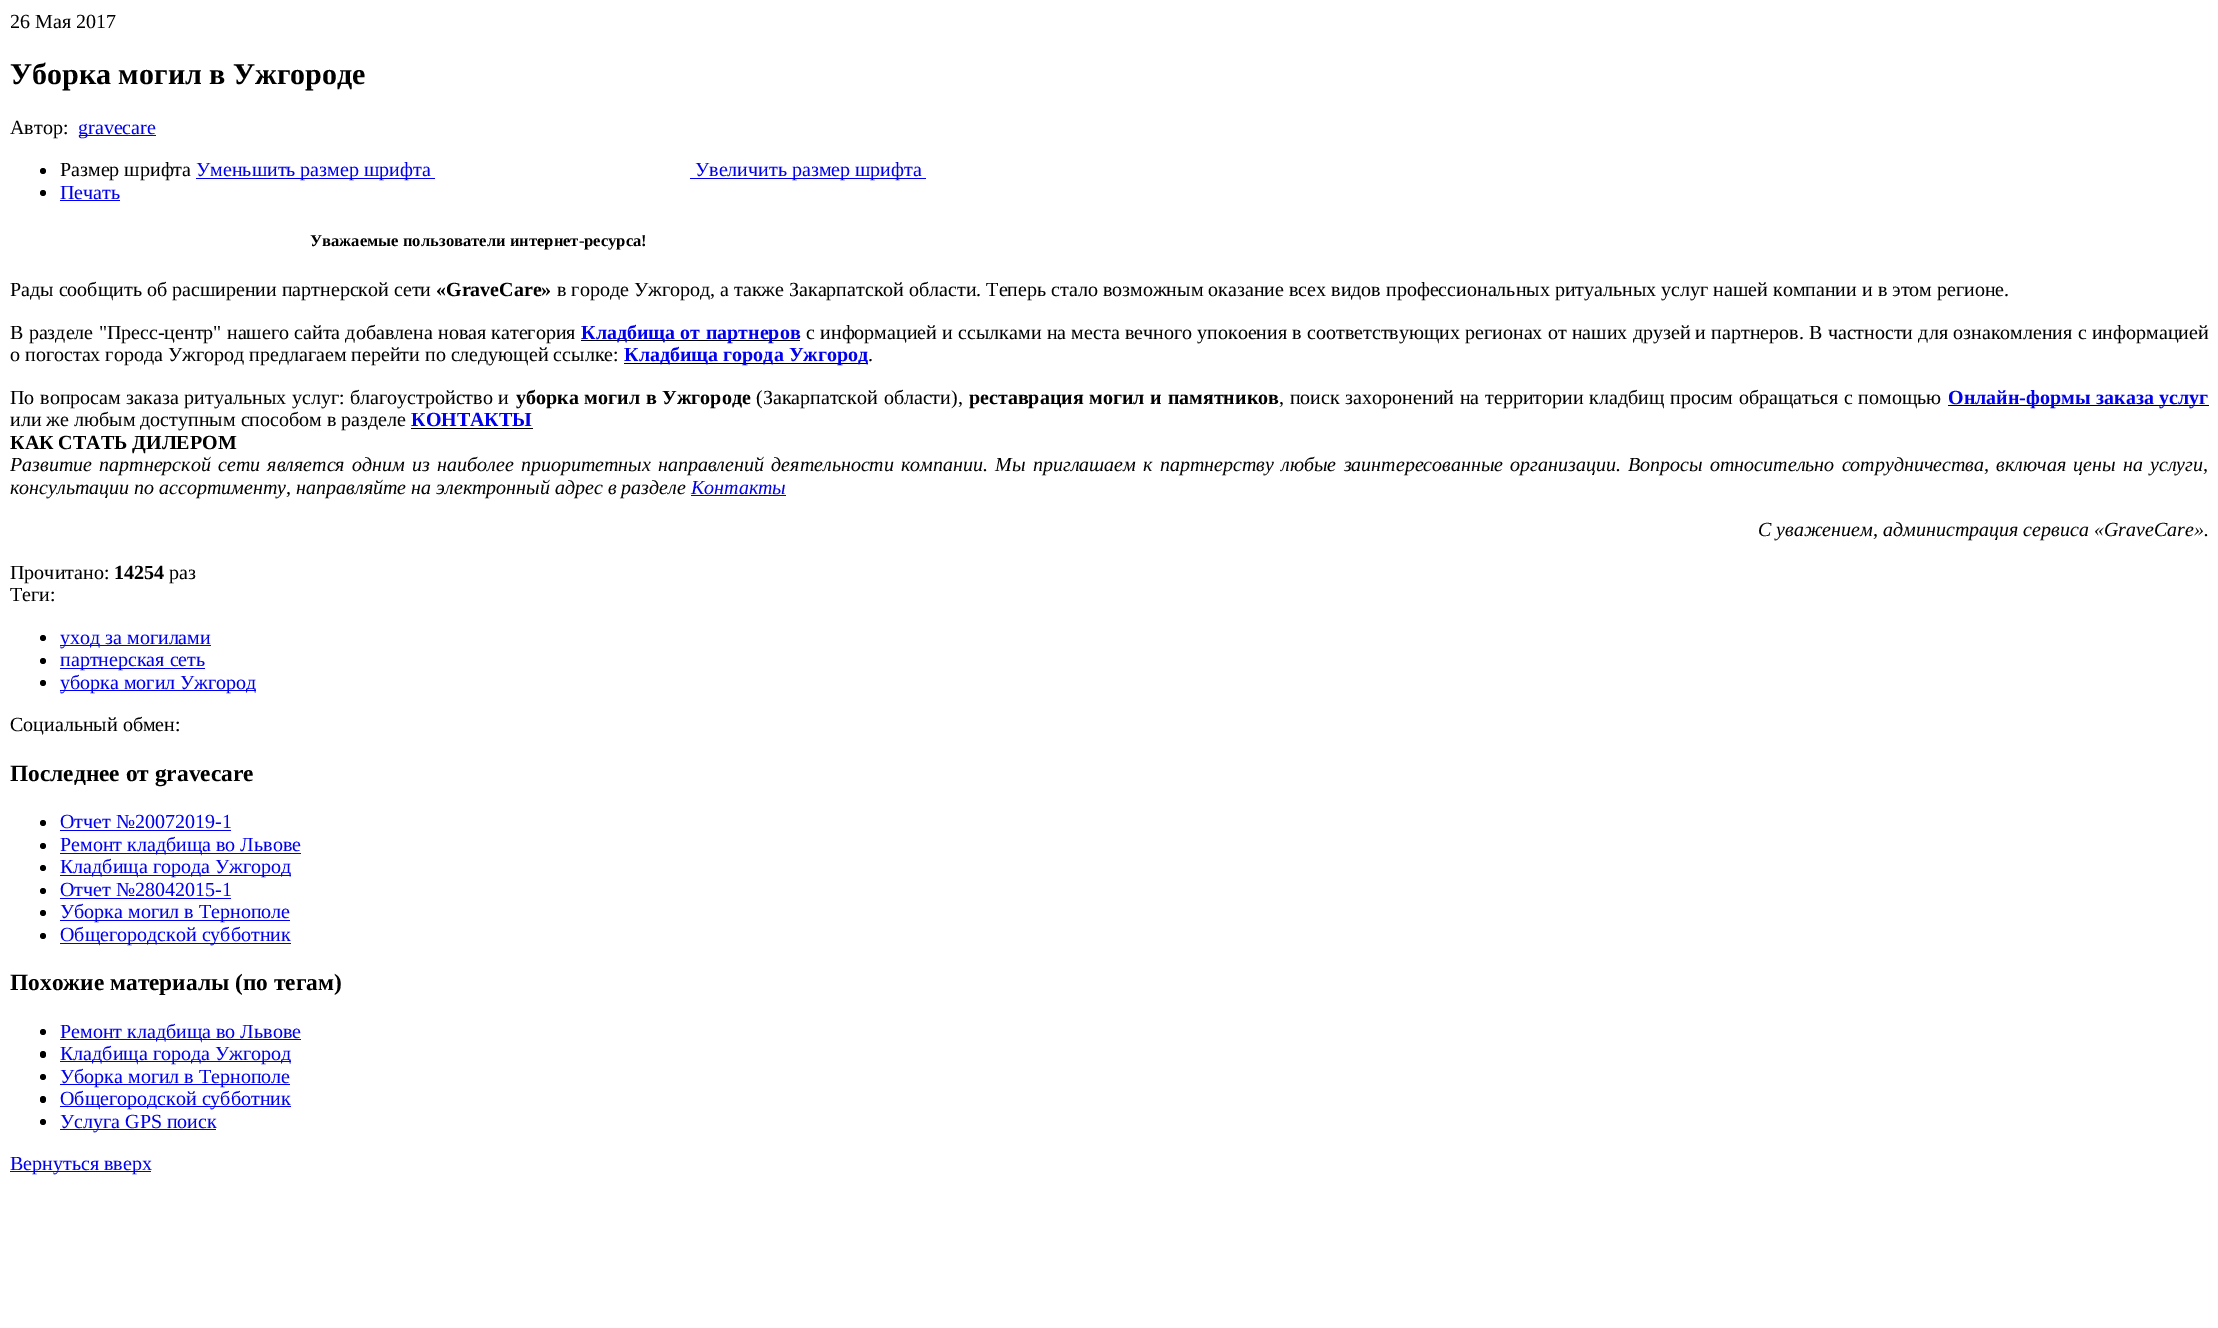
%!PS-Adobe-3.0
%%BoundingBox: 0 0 2218 1328
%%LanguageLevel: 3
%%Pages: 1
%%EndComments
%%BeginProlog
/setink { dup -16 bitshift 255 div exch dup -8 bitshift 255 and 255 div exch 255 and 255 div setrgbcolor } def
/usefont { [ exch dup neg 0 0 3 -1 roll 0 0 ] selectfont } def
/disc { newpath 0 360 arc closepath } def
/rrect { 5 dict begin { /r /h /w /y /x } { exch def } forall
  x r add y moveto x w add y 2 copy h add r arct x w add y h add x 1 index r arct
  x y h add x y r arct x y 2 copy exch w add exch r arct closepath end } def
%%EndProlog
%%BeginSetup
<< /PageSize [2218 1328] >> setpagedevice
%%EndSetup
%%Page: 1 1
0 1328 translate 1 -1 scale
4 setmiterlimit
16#FFFFFF setink
0 0 2218 1328 rectfill
/LiberationSerif-Regular 20 usefont
16#000000 setink
10 28 moveto (26 Мая 2017) show
/LiberationSerif-Bold 30 usefont
10 84 moveto (Уборка могил в Ужгороде) show
/LiberationSerif-Regular 20 usefont
10 134 moveto (Автор:) show
16#0000EE setink
79 135 77 1 rectfill
78 134 moveto (gravecare) show
16#000000 setink
43 171 3 disc fill
60 176 moveto (Размер шрифта) show
16#0000EE setink
196 178 234 1 rectfill
196 176 moveto (Уменьшить размер шрифта) show
430 178 5 1 rectfill
690 178 231 1 rectfill
695 176 moveto (Увеличить размер шрифта) show
921 178 5 1 rectfill
16#000000 setink
43 193 3 disc fill
16#0000EE setink
60 199 moveto (Печать) show
60 200 60 1 rectfill
/LiberationSerif-Bold 16.6 usefont
16#000000 setink
310 246 moveto (Уважаемые пользователи интернет-ресурса!) show
/LiberationSerif-Regular 20 usefont
10 296 moveto (Рады сообщить об расширении партнерской сети) show
/LiberationSerif-Bold 20 usefont
436 296 moveto («GraveCare») show
/LiberationSerif-Regular 20 usefont
557 296 moveto (в городе Ужгород, а также Закарпатской области. Теперь стало возможным оказание всех видов профессиональных ритуальных услуг нашей компании и в этом регионе.) show
10 339 moveto 0.25 0 32 (В разделе "Пресс-центр" нашего сайта добавлена новая категория) widthshow
581 340 219 1 rectfill
/LiberationSerif-Bold 20 usefont
16#0000EE setink
581 339 moveto 0.25 0 32 (Кладбища от партнеров) widthshow
/LiberationSerif-Regular 20 usefont
16#000000 setink
806 339 moveto 0.25 0 32 (с информацией и ссылками на места вечного упокоения в соответствующих регионах от наших друзей и партнеров. В частности для ознакомления с информацией) widthshow
10 361 moveto (о погостах города Ужгород предлагаем перейти по следующей ссылке:) show
624 363 244 1 rectfill
/LiberationSerif-Bold 20 usefont
16#0000EE setink
624 361 moveto (Кладбища города Ужгород) show
/LiberationSerif-Regular 20 usefont
16#000000 setink
868 361 moveto (.) show
10 404 moveto 0.75 0 32 (По вопросам заказа ритуальных услуг: благоустройство и) widthshow
/LiberationSerif-Bold 20 usefont
516 404 moveto 0.75 0 32 (уборка могил в Ужгороде) widthshow
/LiberationSerif-Regular 20 usefont
756 404 moveto 0.75 0 32 (\(Закарпатской области\),) widthshow
/LiberationSerif-Bold 20 usefont
969 404 moveto 0.75 0 32 (реставрация могил и памятников) widthshow
/LiberationSerif-Regular 20 usefont
1279 404 moveto 0.75 0 32 (, поиск захоронений на территории кладбищ просим обращаться с помощью) widthshow
1948 405 261 1 rectfill
/LiberationSerif-Bold 20 usefont
16#0000EE setink
1948 404 moveto 0.75 0 32 (Онлайн-формы заказа услуг) widthshow
/LiberationSerif-Regular 20 usefont
16#000000 setink
10 426 moveto (или же любым доступным способом в разделе) show
/LiberationSerif-Bold 20 usefont
16#0000EE setink
411 426 moveto (КОНТАКТЫ) show
16#000000 setink
411 428 122 1 rectfill
10 449 moveto (КАК СТАТЬ ДИЛЕРОМ) show
/LiberationSerif-Italic 20 usefont
10 471 moveto 2.2 0 32 (Развитие партнерской сети является одним из наиболее приоритетных направлений деятельности компании. Мы приглашаем к партнерству любые заинтересованные организации. Вопросы относительно сотрудничества, включая цены на услуги,) widthshow
10 494 moveto (консультации по ассортименту, направляйте на электронный адрес в разделе) show
16#0000EE setink
691 494 moveto (Контакты) show
691 495 95 1 rectfill
16#000000 setink
1758 536 moveto (С уважением, администрация сервиса «GraveCare».) show
/LiberationSerif-Regular 20 usefont
10 579 moveto (Прочитано:) show
/LiberationSerif-Bold 20 usefont
114 579 moveto (14254) show
/LiberationSerif-Regular 20 usefont
169 579 moveto (раз) show
10 601 moveto (Теги:) show
43 638 3 disc fill
16#0000EE setink
60 645 151 1 rectfill
60 644 moveto (уход за могилами) show
16#000000 setink
43 661 3 disc fill
16#0000EE setink
60 668 145 1 rectfill
60 666 moveto (партнерская сеть) show
16#000000 setink
43 683 3 disc fill
16#0000EE setink
60 690 196 1 rectfill
60 689 moveto (уборка могил Ужгород) show
16#000000 setink
10 731 moveto (Социальный обмен:) show
/LiberationSerif-Bold 23.4 usefont
10 781 moveto (Последнее от gravecare) show
43 823 3 disc fill
/LiberationSerif-Regular 20 usefont
16#0000EE setink
60 828 moveto (Отчет №20072019-1) show
60 830 171 1 rectfill
16#000000 setink
43 846 3 disc fill
16#0000EE setink
60 853 241 1 rectfill
60 851 moveto (Ремонт кладбища во Львове) show
16#000000 setink
43 868 3 disc fill
16#0000EE setink
60 875 231 1 rectfill
60 873 moveto (Кладбища города Ужгород) show
16#000000 setink
43 891 3 disc fill
16#0000EE setink
60 896 moveto (Отчет №28042015-1) show
60 898 171 1 rectfill
16#000000 setink
43 913 3 disc fill
16#0000EE setink
60 920 230 1 rectfill
60 918 moveto (Уборка могил в Тернополе) show
16#000000 setink
43 936 3 disc fill
16#0000EE setink
60 943 231 1 rectfill
60 941 moveto (Общегородской субботник) show
/LiberationSerif-Bold 23.4 usefont
16#000000 setink
10 990 moveto (Похожие материалы \(по тегам\)) show
43 1032 3 disc fill
16#0000EE setink
60 1039 241 1 rectfill
/LiberationSerif-Regular 20 usefont
60 1038 moveto (Ремонт кладбища во Львове) show
16#000000 setink
40 1051 6 7 3 rrect fill
16#0000EE setink
60 1061 231 1 rectfill
60 1060 moveto (Кладбища города Ужгород) show
16#000000 setink
43 1077 3 disc fill
16#0000EE setink
60 1084 230 1 rectfill
60 1083 moveto (Уборка могил в Тернополе) show
16#000000 setink
40 1096 6 7 3 rrect fill
16#0000EE setink
60 1106 231 1 rectfill
60 1105 moveto (Общегородской субботник) show
16#000000 setink
43 1122 3 disc fill
16#0000EE setink
60 1129 156 1 rectfill
60 1128 moveto (Услуга GPS поиск) show
10 1171 141 1 rectfill
10 1170 moveto (Вернуться вверх) show
showpage
%%EOF
